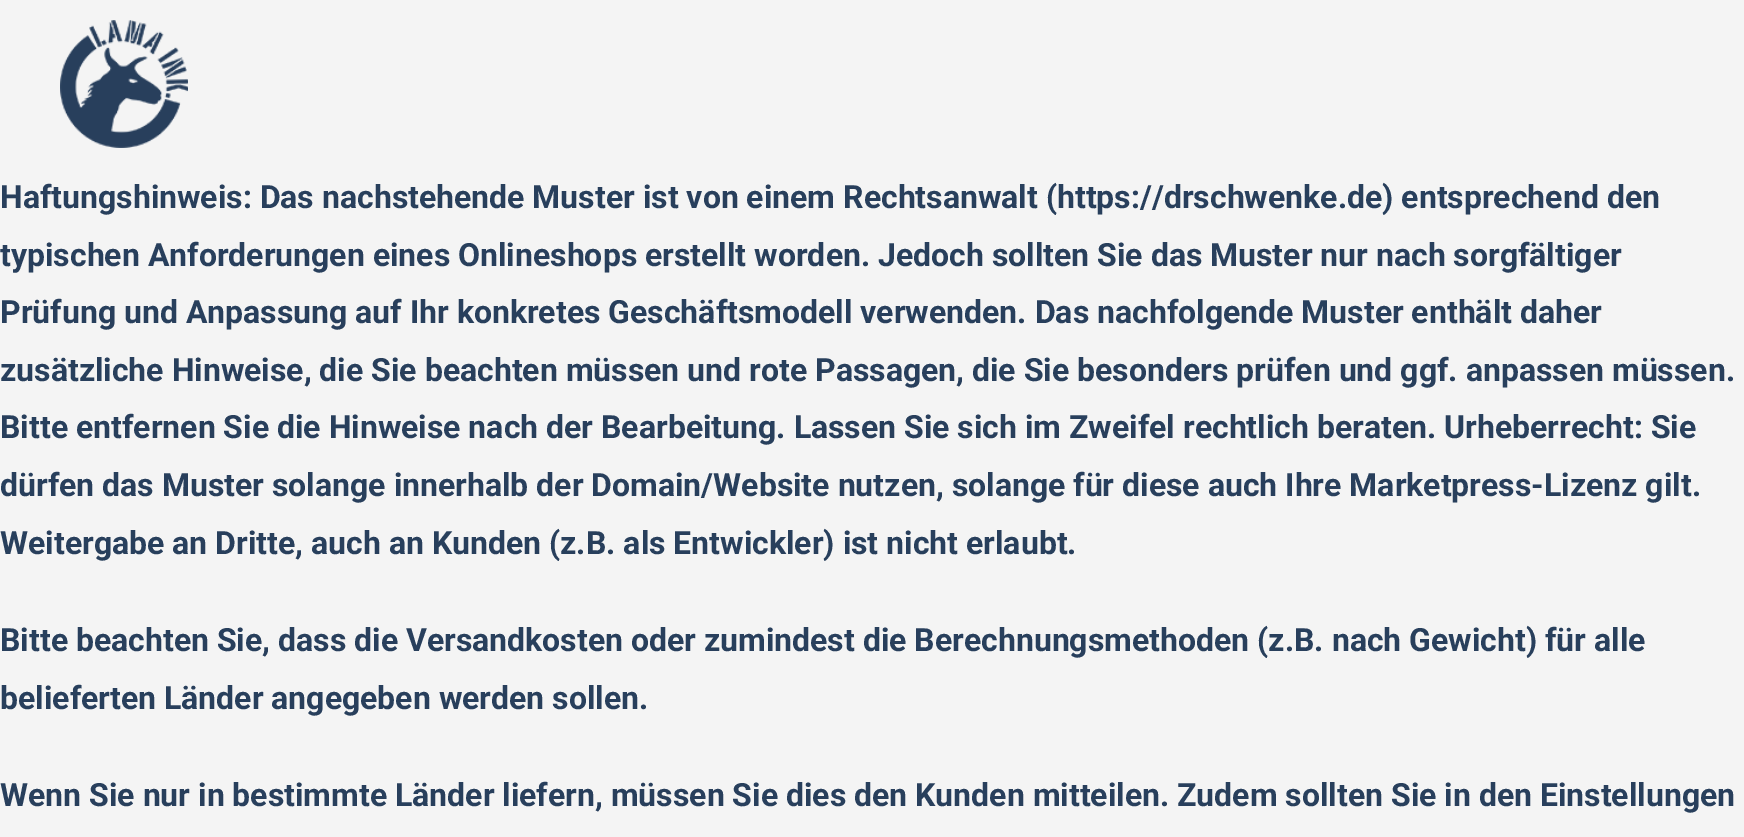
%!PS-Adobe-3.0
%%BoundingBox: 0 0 1744 837
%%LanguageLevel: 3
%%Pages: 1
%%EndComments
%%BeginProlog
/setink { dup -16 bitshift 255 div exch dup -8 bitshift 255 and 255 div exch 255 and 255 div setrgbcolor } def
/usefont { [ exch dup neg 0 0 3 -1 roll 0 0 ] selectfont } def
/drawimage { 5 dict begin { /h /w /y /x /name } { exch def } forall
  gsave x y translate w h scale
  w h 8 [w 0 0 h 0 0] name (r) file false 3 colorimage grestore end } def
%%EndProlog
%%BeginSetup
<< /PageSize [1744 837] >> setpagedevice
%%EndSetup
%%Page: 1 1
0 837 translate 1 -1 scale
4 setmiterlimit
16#F4F4F4 setink
0 0 1744 837 rectfill
(img1.raw) 60 20 128 128 drawimage
/Roboto-Bold 32 usefont
16#283F5C setink
[
    [(Haftungshinweis: Das nachstehende Muster ist von einem Rechtsanwalt \(https://drschwenke.de\) entsprechend den) 0 208]
    [(typischen Anforderungen eines Onlineshops erstellt worden. Jedoch sollten Sie das Muster nur nach sorgfältiger) 0 266]
    [(Prüfung und Anpassung auf Ihr konkretes Geschäftsmodell verwenden. Das nachfolgende Muster enthält daher) 0 323]
    [(zusätzliche Hinweise, die Sie beachten müssen und rote Passagen, die Sie besonders prüfen und ggf. anpassen müssen.) 0 381]
    [(Bitte entfernen Sie die Hinweise nach der Bearbeitung. Lassen Sie sich im Zweifel rechtlich beraten. Urheberrecht: Sie) 0 438]
    [(dürfen das Muster solange innerhalb der Domain/Website nutzen, solange für diese auch Ihre Marketpress-Lizenz gilt.) 0 496]
    [(Weitergabe an Dritte, auch an Kunden \(z.B. als Entwickler\) ist nicht erlaubt.) 0 554]
    [(Bitte beachten Sie, dass die Versandkosten oder zumindest die Berechnungsmethoden \(z.B. nach Gewicht\) für alle) 0 651]
    [(belieferten Länder angegeben werden sollen.) 0 709]
    [(Wenn Sie nur in bestimmte Länder liefern, müssen Sie dies den Kunden mitteilen. Zudem sollten Sie in den Einstellungen) 0 806]
] { aload pop moveto show } forall
showpage
%%EOF
